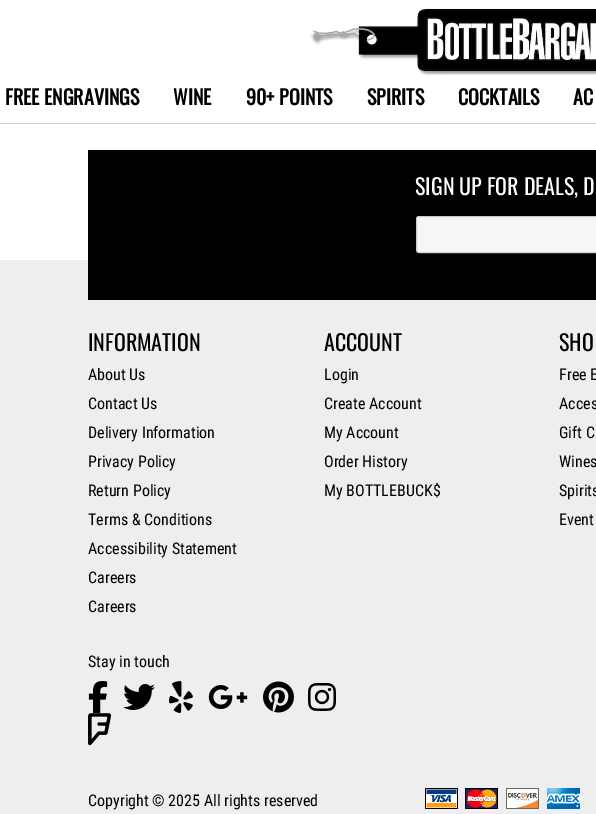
%!PS-Adobe-3.0
%%BoundingBox: 0 0 596 814
%%LanguageLevel: 3
%%Pages: 1
%%EndComments
%%BeginProlog
/setink { dup -16 bitshift 255 div exch dup -8 bitshift 255 and 255 div exch 255 and 255 div setrgbcolor } def
/usefont { [ exch dup neg 0 0 3 -1 roll 0 0 ] selectfont } def
/rrect { 5 dict begin { /r /h /w /y /x } { exch def } forall
  x r add y moveto x w add y 2 copy h add r arct x w add y h add x 1 index r arct
  x y h add x y r arct x y 2 copy exch w add exch r arct closepath end } def
/drawimage { 5 dict begin { /h /w /y /x /name } { exch def } forall
  gsave x y translate w h scale
  w h 8 [w 0 0 h 0 0] name (r) file false 3 colorimage grestore end } def
%%EndProlog
%%BeginSetup
<< /PageSize [596 814] >> setpagedevice
%%EndSetup
%%Page: 1 1
0 814 translate 1 -1 scale
4 setmiterlimit
16#FFFFFF setink
0 0 596 814 rectfill
16#CCCCCC setink
0 123 596 1 rectfill
(img1.raw) 310 8 286 67 drawimage
/Oswald-Bold 20 usefont
16#000000 setink
[
    [(FREE ENGRAVINGS) 5 105]
    [(WINE) 173 105]
    [(90+ POINTS) 246 105]
    [(SPIRITS) 367 105]
    [(COCKTAILS) 458 105]
    [(AC) 573 105]
] { aload pop moveto show } forall
16#EEEEEE setink
0 260 596 554 rectfill
16#000000 setink
88 150 508 150 rectfill
/Oswald-Regular 22 usefont
16#FFFFFF setink
415 195 moveto (SIGN UP FOR DEALS, D) show
16#F6F6F6 setink
416.5 216.5 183 36 2.5 rrect gsave fill grestore
16#CCCCCC setink
stroke
16#000000 setink
88 351 moveto (INFORMATION) show
/RobotoCondensed-Regular 16 usefont
[
    [(About Us) 88 380]
    [(Contact Us) 88 409]
    [(Delivery Information) 88 438]
    [(Privacy Policy) 88 467]
    [(Return Policy) 88 496]
    [(Terms & Conditions) 88 525]
    [(Accessibility Statement) 88 554]
    [(Careers) 88 583]
    [(Careers) 88 612]
    [(Stay in touch) 88 667]
] { aload pop moveto show } forall
(img2.raw) 88 681 20 32 drawimage
(img3.raw) 123 684 32 26 drawimage
(img4.raw) 169 681 24 32 drawimage
(img5.raw) 208 685 40 24 drawimage
(img6.raw) 263 681 31 32 drawimage
(img7.raw) 308 683 28 28 drawimage
(img8.raw) 88 713 23 33 drawimage
/Oswald-Regular 22 usefont
324 351 moveto (ACCOUNT) show
/RobotoCondensed-Regular 16 usefont
[
    [(Login) 324 380]
    [(Create Account) 324 409]
    [(My Account) 324 438]
    [(Order History) 324 467]
    [(My BOTTLEBUCK$) 324 496]
] { aload pop moveto show } forall
/Oswald-Regular 22 usefont
559 351 moveto (SHO) show
/RobotoCondensed-Regular 16 usefont
[
    [(Free E) 559 380]
    [(Acces) 559 409]
    [(Gift C) 559 438]
    [(Wines) 559 467]
    [(Spirits) 559 496]
    [(Event) 559 525]
    [(Copyright © 2025 All rights reserved) 88 806]
] { aload pop moveto show } forall
(img9.raw) 425 788 33 21 drawimage
(img10.raw) 465 788 33 21 drawimage
(img11.raw) 506 788 33 21 drawimage
(img12.raw) 547 788 33 21 drawimage
showpage
%%EOF
